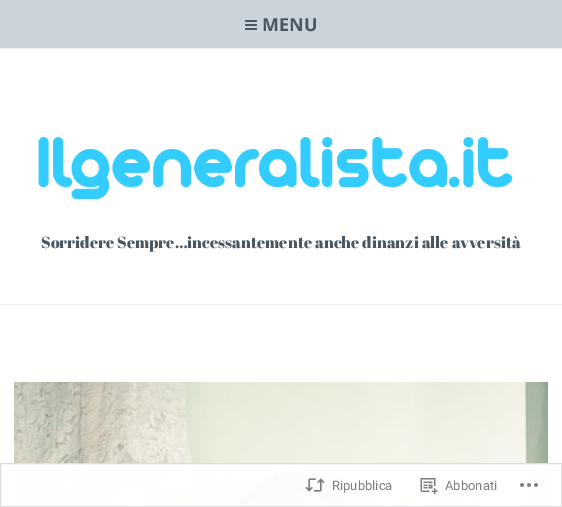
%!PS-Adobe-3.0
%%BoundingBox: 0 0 562 507
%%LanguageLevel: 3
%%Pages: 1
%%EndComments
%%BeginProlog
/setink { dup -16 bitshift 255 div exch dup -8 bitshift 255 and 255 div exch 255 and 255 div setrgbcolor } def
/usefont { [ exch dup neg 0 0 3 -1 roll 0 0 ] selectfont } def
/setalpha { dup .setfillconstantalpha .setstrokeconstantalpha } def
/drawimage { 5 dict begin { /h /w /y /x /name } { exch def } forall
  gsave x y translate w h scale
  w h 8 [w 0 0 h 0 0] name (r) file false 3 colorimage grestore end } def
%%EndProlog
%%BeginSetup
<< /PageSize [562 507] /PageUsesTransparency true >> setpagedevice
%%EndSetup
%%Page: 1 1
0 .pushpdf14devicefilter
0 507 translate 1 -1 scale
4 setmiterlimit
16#FFFFFF setink
0 0 562 507 rectfill
16#EEEEEE setink
0 48 562 1 rectfill
16#CCD4DB setink
0 0 562 48 rectfill
(img1.raw) 245 20 12 10 drawimage
/OpenSans-Bold 18 usefont
16#495762 setink
262 31 moveto (MENU) show
(img2.raw) 38 137 475 62 drawimage
/AbrilFatface-Regular 16 usefont
41 248 moveto (Sorridere Sempre…incessantemente anche dinanzi alle avversità) show
16#EEEEEE setink
0 304 562 1 rectfill
(img3.raw) 14 382 534 125 drawimage
0.98 setalpha
16#FFFFFF setink
14 463 534 44 rectfill
16#DCDCDE setink
0.5 463.5 561 43 rectstroke
1 setalpha
(img4.raw) 305 478 20 14 drawimage
/Roboto-Regular 13 usefont
16#7B7F84 setink
332 490 moveto (Ripubblica) show
(img5.raw) 420 478 18 17 drawimage
445 490 moveto (Abbonati) show
(img6.raw) 520 483 18 4 drawimage
.poppdf14devicefilter showpage
%%EOF
